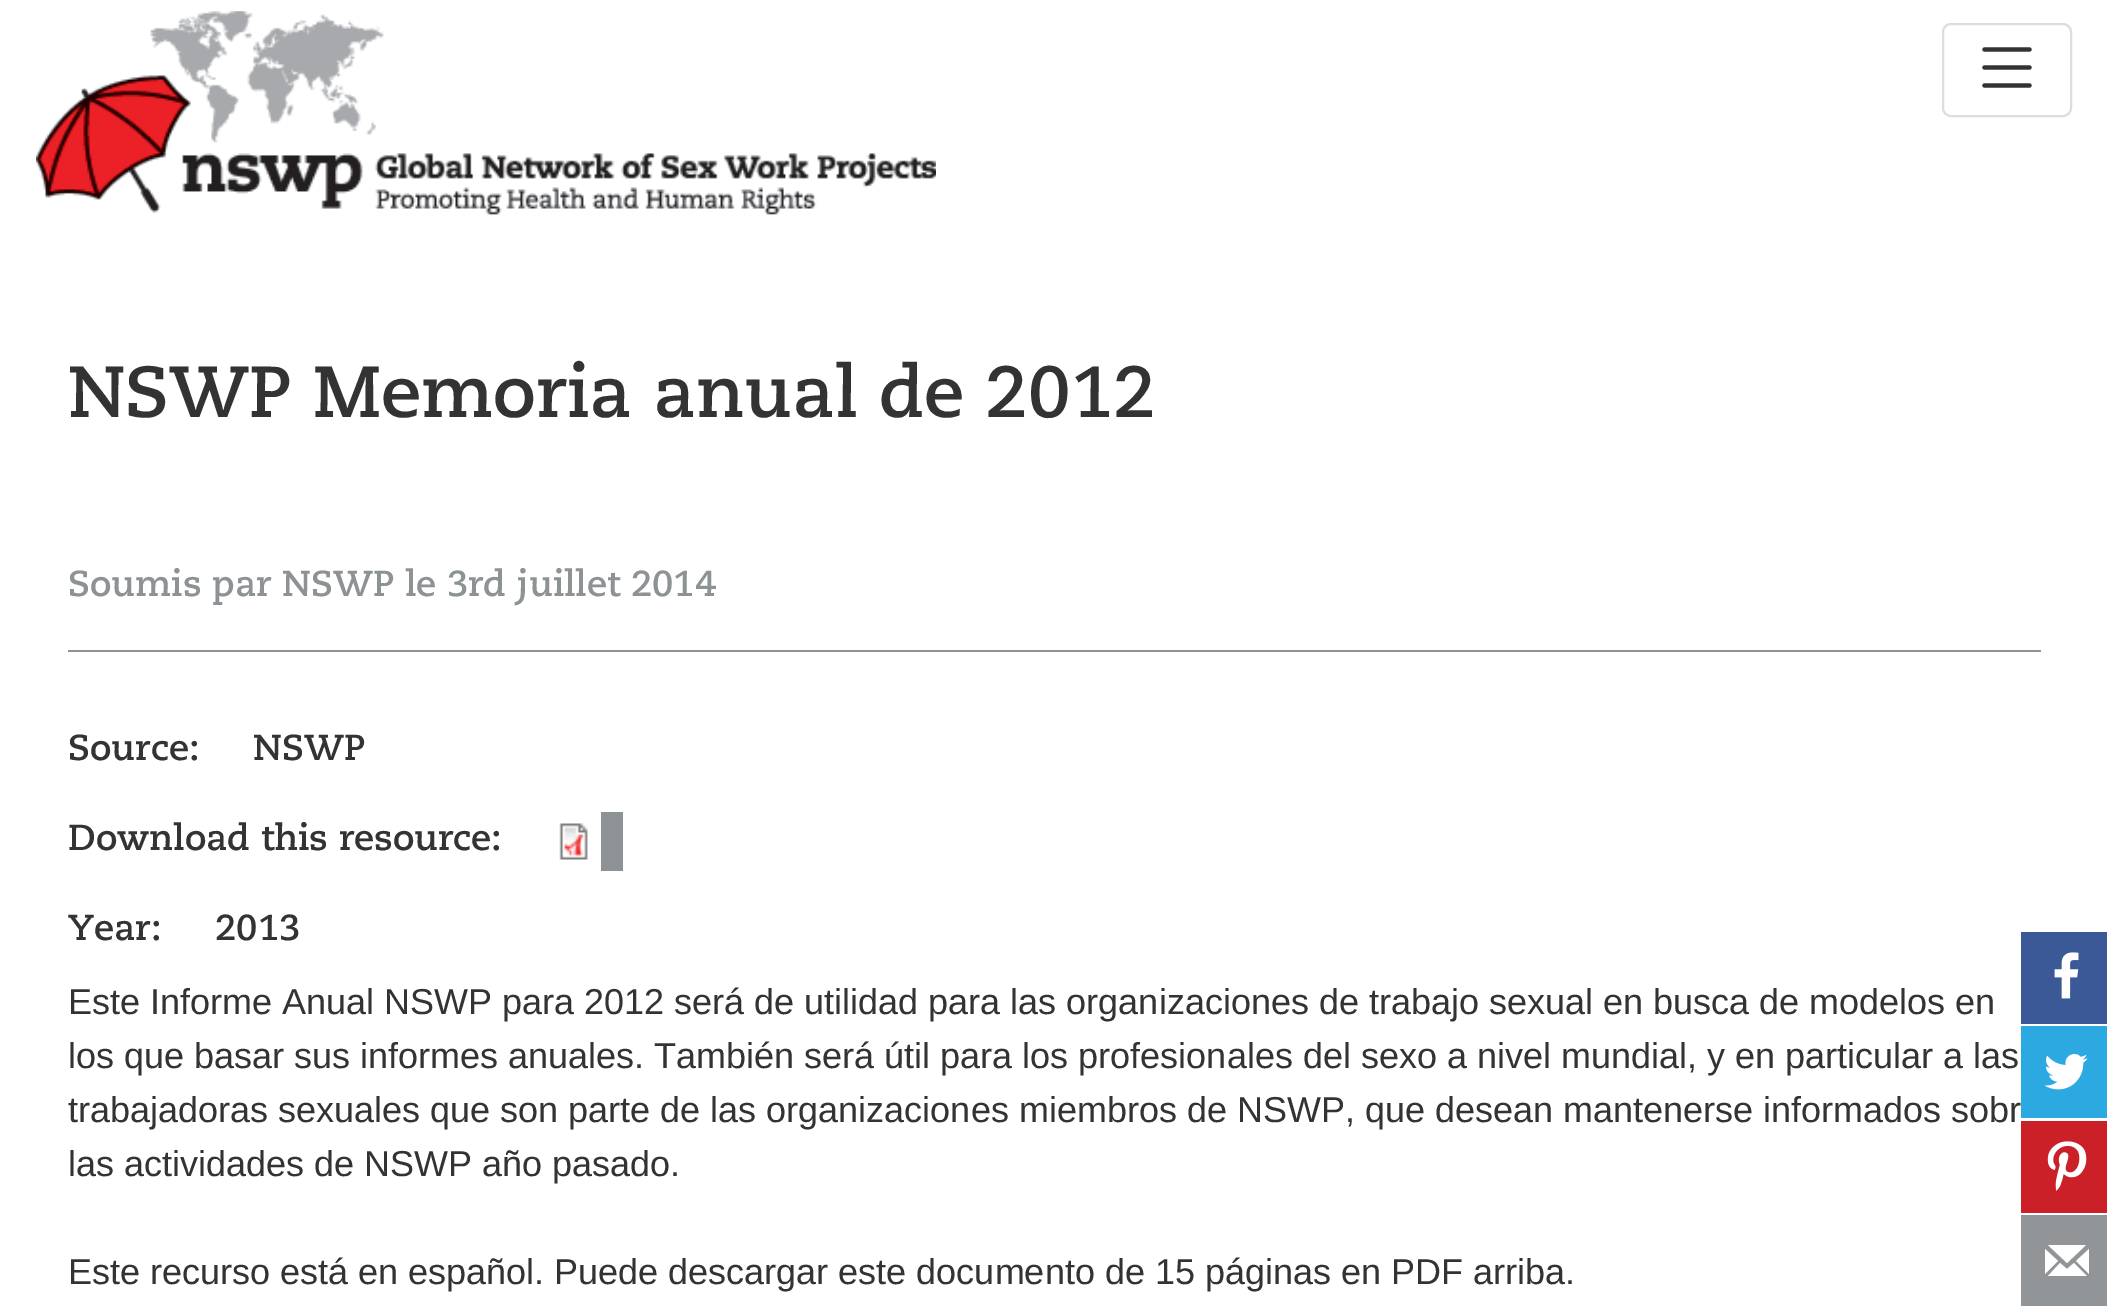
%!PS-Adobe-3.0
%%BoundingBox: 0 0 2107 1306
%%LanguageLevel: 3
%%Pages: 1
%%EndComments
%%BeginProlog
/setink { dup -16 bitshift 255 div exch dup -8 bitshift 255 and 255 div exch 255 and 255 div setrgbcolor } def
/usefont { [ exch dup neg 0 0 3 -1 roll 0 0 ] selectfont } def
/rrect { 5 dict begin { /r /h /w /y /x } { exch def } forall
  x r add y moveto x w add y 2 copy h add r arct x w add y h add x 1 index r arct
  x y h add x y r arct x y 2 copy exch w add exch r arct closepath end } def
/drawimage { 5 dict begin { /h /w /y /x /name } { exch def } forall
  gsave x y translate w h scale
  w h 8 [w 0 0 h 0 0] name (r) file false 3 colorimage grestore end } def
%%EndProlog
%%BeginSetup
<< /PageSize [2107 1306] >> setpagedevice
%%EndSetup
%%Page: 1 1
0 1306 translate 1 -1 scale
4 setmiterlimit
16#FFFFFF setink
0 0 2107 1306 rectfill
(img1.raw) 36 11 900 204 drawimage
16#DDDDDD setink
2 setlinewidth
1943 24 128 92 8 rrect stroke
(img2.raw) 1982 47 50 41 drawimage
/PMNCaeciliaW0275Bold-Bold 72 usefont
16#333333 setink
68 417 moveto (NSWP Memoria anual de 2012) show
16#8D9295 setink
68 650 1973 2 rectfill
/PMNCaeciliaW0275Bold-Bold 36 usefont
68 596 moveto (Soumis par NSWP le 3rd juillet 2014) show
16#333333 setink
[
    [(Source:) 68 760]
    [(NSWP) 253 760]
    [(Download this resource:) 68 850]
] { aload pop moveto show } forall
(img3.raw) 559 823 29 37 drawimage
16#8D9295 setink
601 812 22 59 rectfill
16#333333 setink
68 940 moveto (Year:) show
215 940 moveto (2013) show
/LiberationSans-Regular 36 usefont
[
    [(Este Informe Anual NSWP para 2012 será de utilidad para las organizaciones de trabajo sexual en busca de modelos en) 68 1014]
    [(los que basar sus informes anuales. También será útil para los profesionales del sexo a nivel mundial, y en particular a las) 68 1068]
    [(trabajadoras sexuales que son parte de las organizaciones miembros de NSWP, que desean mantenerse informados sobr) 68 1122]
    [(las actividades de NSWP año pasado.) 68 1176]
    [(Este recurso está en español. Puede descargar este documento de 15 páginas en PDF arriba.) 68 1284]
] { aload pop moveto show } forall
16#3B5997 setink
2021 932 86 92 rectfill
(img4.raw) 2054 952 25 47 drawimage
16#2BA9E0 setink
2021 1026 86 92 rectfill
(img5.raw) 2044 1054 44 36 drawimage
16#CB2027 setink
2021 1121 86 92 rectfill
(img6.raw) 2047 1141 40 50 drawimage
16#919598 setink
2021 1215 86 91 rectfill
16#FFFFFF setink
2074 1263 moveto 2087 1276 lineto 2048 1276 lineto 2060 1263 lineto 2067 1269 lineto closepath 2048 1245 moveto 2086 1245 lineto 2067 1263 lineto closepath 2076 1261 moveto 2089 1249 lineto 2089 1274 lineto closepath 2045 1274 moveto 2045 1249 lineto 2058 1261 lineto closepath fill
showpage
%%EOF
